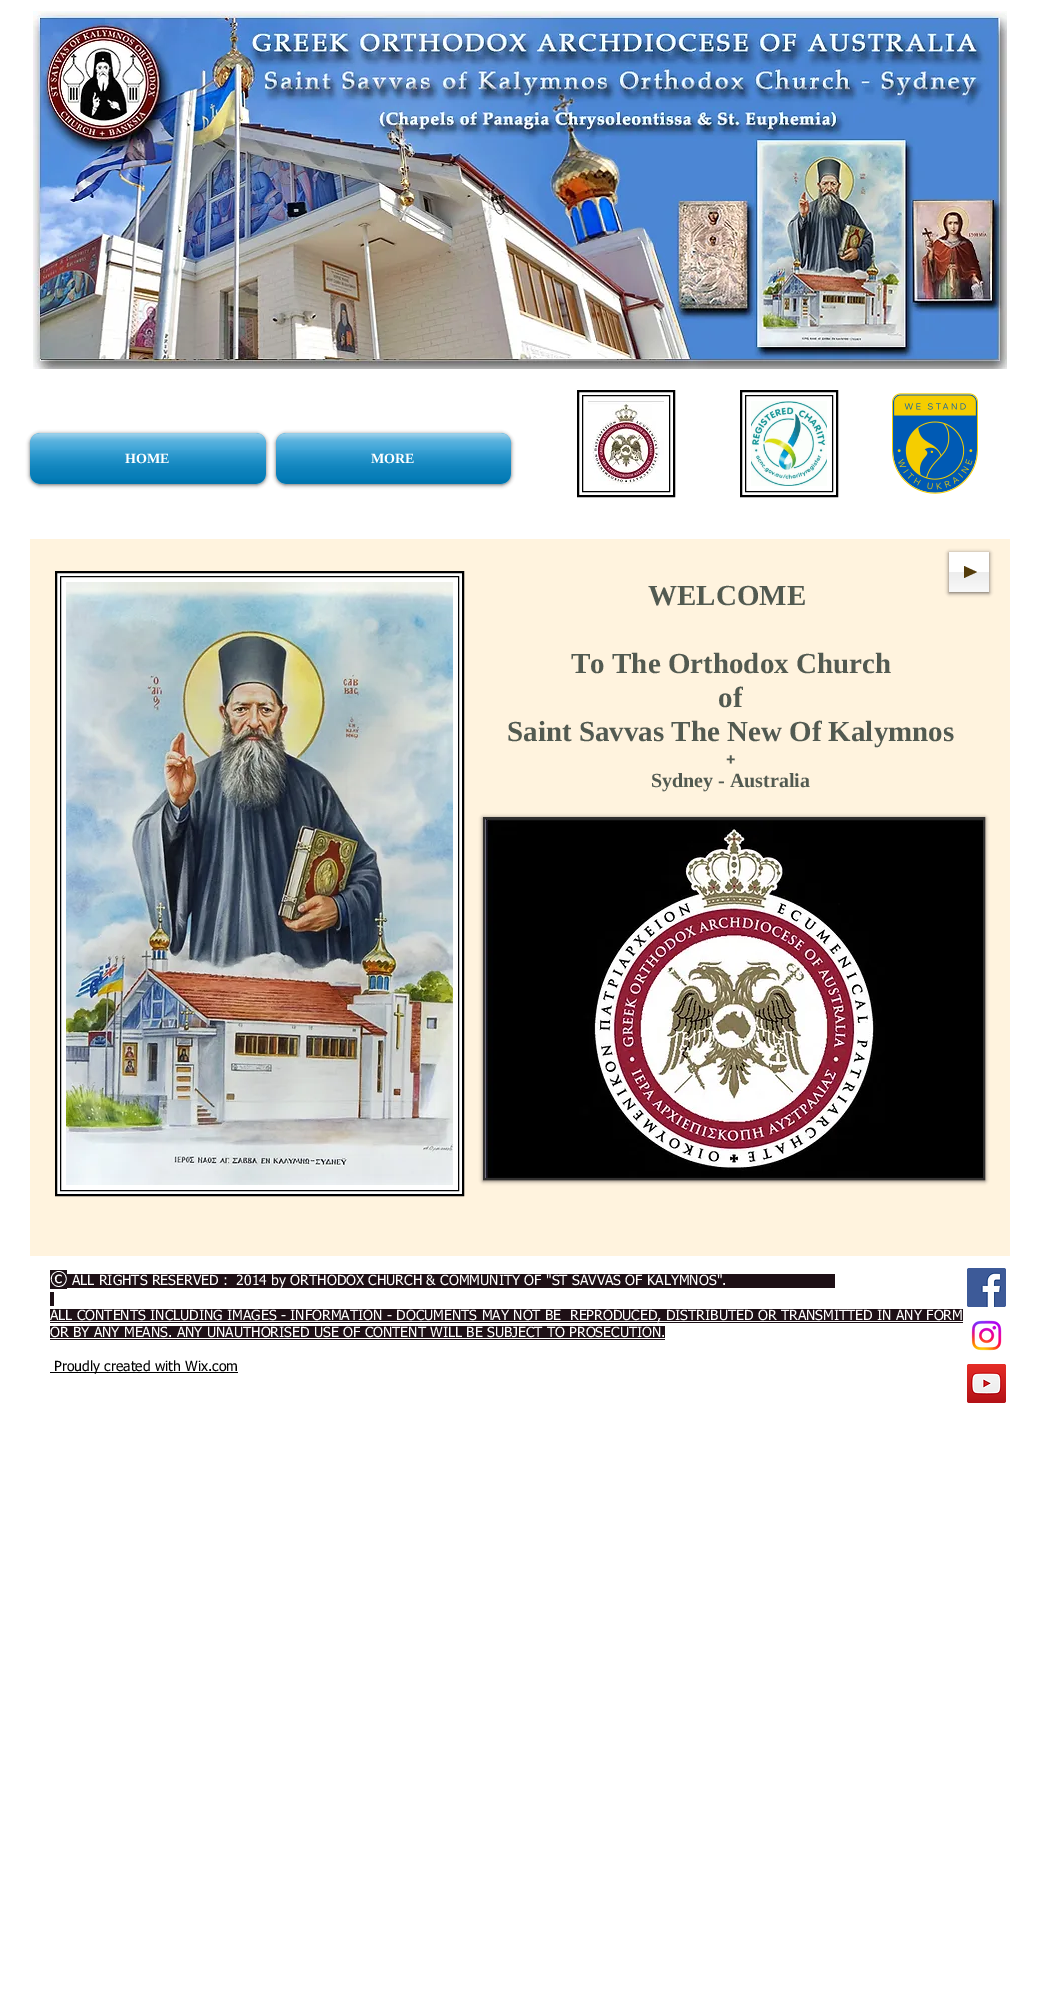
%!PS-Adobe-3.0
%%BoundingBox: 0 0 1039 2010
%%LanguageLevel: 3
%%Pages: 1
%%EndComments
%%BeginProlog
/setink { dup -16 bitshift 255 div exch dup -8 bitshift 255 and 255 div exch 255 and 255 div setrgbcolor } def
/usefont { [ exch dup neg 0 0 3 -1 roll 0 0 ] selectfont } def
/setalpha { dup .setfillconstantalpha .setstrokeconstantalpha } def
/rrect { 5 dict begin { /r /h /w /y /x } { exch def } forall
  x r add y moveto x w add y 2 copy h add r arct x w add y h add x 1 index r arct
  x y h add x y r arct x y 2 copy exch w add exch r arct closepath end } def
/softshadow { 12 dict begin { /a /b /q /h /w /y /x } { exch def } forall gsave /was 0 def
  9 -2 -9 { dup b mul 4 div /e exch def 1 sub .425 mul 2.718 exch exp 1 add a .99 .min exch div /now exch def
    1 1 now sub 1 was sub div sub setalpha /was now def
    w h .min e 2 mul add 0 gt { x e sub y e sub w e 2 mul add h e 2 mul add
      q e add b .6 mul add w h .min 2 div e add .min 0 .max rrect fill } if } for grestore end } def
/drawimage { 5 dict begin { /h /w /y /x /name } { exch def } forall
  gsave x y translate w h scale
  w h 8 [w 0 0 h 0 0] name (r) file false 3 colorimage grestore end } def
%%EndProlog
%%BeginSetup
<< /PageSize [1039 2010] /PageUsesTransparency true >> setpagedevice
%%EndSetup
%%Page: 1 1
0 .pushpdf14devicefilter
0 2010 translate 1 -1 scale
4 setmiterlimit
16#FFFFFF setink
0 0 1039 2010 rectfill
(img1.raw) 33 11 974 358 drawimage
16#000000 setink
30 434 236 51 10 2 0.6 softshadow
16#0088CB setink
30 433 236 51 10 rrect fill
0.05 setalpha
30 433 236 51 rectfill
1 setalpha
(img2.raw) 30 433 236 46 drawimage
(img3.raw) 30 450 236 34 drawimage
/LiberationSerif-Bold 14 usefont
16#FFFFFF setink
125 463 moveto (HOME) show
16#000000 setink
276 434 235 51 10 2 0.6 softshadow
16#0088CB setink
276 433 235 51 10 rrect fill
(img4.raw) 276 433 235 46 drawimage
(img5.raw) 276 450 235 34 drawimage
16#FFFFFF setink
371 463 moveto (MORE) show
16#000000 setink
2 setlinewidth
578 391 96 105 rectstroke
(img6.raw) 588 401 76 84 drawimage
1 setlinewidth
582.5 395.5 87 96 rectstroke
2 setlinewidth
741 391 96 105 rectstroke
(img7.raw) 751 401 76 85 drawimage
1 setlinewidth
745.5 395.5 87 96 rectstroke
(img8.raw) 892 393 86 101 drawimage
16#FFF3DE setink
30 539 980 717 rectfill
16#FFFFFF setink
56 572 moveto 463 572 lineto 463 1195 lineto 56 1195 lineto closepath gsave fill grestore
16#000000 setink
2 setlinewidth
stroke
(img9.raw) 66 582 387 603 drawimage
1 setlinewidth
60.5 576.5 398 614 rectstroke
/LiberationSerif-Bold 29 usefont
16#525A51 setink
[
    [(WELCOME) 648 605]
    [(To The Orthodox Church) 571 673]
    [(of) 718 707]
    [(Saint Savvas The New Of Kalymnos) 507 741]
] { aload pop moveto show } forall
/Spinnaker-Bold 17 usefont
725 764 moveto (+) show
/LiberationSerif-Bold 20 usefont
651 787 moveto (Sydney - Australia) show
16#000000 setink
949 553 40 40 0 2 0.6 softshadow
16#FFFFFF setink
949 552 40 40 rectfill
(img10.raw) 949 572 40 20 drawimage
16#543C0A setink
964 578 moveto 964 566 lineto 977 572 lineto closepath fill
16#000000 setink
483 818 502 363 0 2 0.6 softshadow
(img11.raw) 485 819 498 359 drawimage
16#2F2E2E setink
2 setlinewidth
484 818 500 361 rectstroke
16#1E1016 setink
50 1270 17 19 rectfill
/tahoma-Regular 19 usefont
16#FFFFFF setink
50 1285 moveto (©) show
16#1E1016 setink
67 1274 768 14 rectfill
/tahoma-Regular 14 usefont
16#FFFFFF setink
72 1285 moveto (ALL RIGHTS RESERVED :  2014 by ORTHODOX CHURCH & COMMUNITY OF "ST SAVVAS OF KALYMNOS".) show
[
    [50 1292 4 14 16#1E1016]
    [50 1309 913 14 16#1E1016]
    [50 1321 913 1 16#FFFFFF]
] { aload pop setink rectfill } forall
50 1320 moveto (ALL CONTENTS INCLUDING IMAGES - INFORMATION - DOCUMENTS MAY NOT BE  REPRODUCED, DISTRIBUTED OR TRANSMITTED IN ANY FORM) show
16#1E1016 setink
50 1326 615 14 rectfill
16#FFFFFF setink
50 1337 moveto (OR BY ANY MEANS. ANY UNAUTHORISED USE OF CONTENT WILL BE SUBJECT TO PROSECUTION.) show
50 1338 615 1 rectfill
16#000000 setink
50 1372 188 1 rectfill
54 1371 moveto (Proudly created with Wix.com) show
(img12.raw) 967 1268 39 39 drawimage
(img13.raw) 971 1320 31 31 drawimage
(img14.raw) 967 1364 39 39 drawimage
.poppdf14devicefilter showpage
%%EOF
